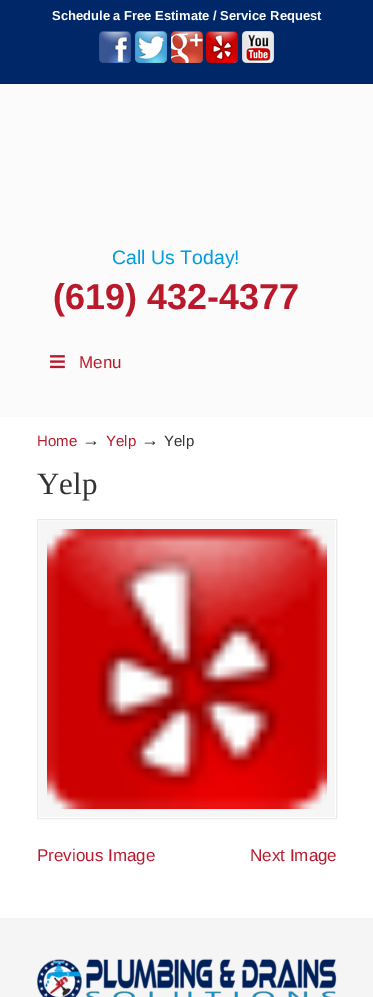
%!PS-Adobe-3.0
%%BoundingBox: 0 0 373 997
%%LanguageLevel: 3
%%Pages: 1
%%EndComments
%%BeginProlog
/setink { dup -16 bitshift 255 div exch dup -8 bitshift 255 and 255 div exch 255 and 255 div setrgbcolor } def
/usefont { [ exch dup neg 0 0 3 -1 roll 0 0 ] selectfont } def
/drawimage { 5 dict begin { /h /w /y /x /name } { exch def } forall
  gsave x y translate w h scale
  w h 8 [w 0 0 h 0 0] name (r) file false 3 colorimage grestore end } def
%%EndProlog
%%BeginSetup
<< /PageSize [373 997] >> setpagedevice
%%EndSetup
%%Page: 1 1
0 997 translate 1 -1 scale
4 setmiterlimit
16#FBFBFB setink
0 0 373 997 rectfill
16#002868 setink
0 0 373 84 rectfill
/LiberationSans-Bold 13 usefont
16#FFFFFF setink
52 20 moveto (Schedule a Free Estimate / Service Request) show
(img1.raw) 99 31 32 32 drawimage
(img2.raw) 135 31 32 32 drawimage
(img3.raw) 171 31 32 32 drawimage
(img4.raw) 206 31 32 32 drawimage
(img5.raw) 242 31 32 32 drawimage
/LiberationSans-Regular 19.5 usefont
16#019CDE setink
112 264 moveto (Call Us Today!) show
/LiberationSans-Bold 36 usefont
16#BA192C setink
53 309 moveto (\(619\) 432-4377) show
(img6.raw) 50 355 15 14 drawimage
/LiberationSans-Regular 17 usefont
79 368 moveto (Menu) show
16#FFFFFF setink
0 417 373 501 rectfill
/LiberationSans-Regular 15 usefont
16#BA192C setink
37 446 moveto (Home) show
/LiberationSans-Regular 18 usefont
16#333333 setink
82 446 moveto (→) show
/LiberationSans-Regular 15 usefont
16#BA192C setink
106 446 moveto (Yelp) show
/LiberationSans-Regular 18 usefont
16#333333 setink
141 446 moveto (→) show
/LiberationSans-Regular 15 usefont
164 446 moveto (Yelp) show
/LiberationSerif-Regular 31 usefont
37 494 moveto (Yelp) show
16#F6F6F6 setink
39 521 296 296 rectfill
16#EAEAEA setink
37.5 519.5 299 299 rectstroke
(img7.raw) 47 529 280 280 drawimage
/LiberationSans-Regular 17 usefont
16#BA192C setink
37 861 moveto (Previous Image) show
250 861 moveto (Next Image) show
16#F5F5F5 setink
0 918 373 79 rectfill
(img8.raw) 37 958 300 39 drawimage
showpage
%%EOF
